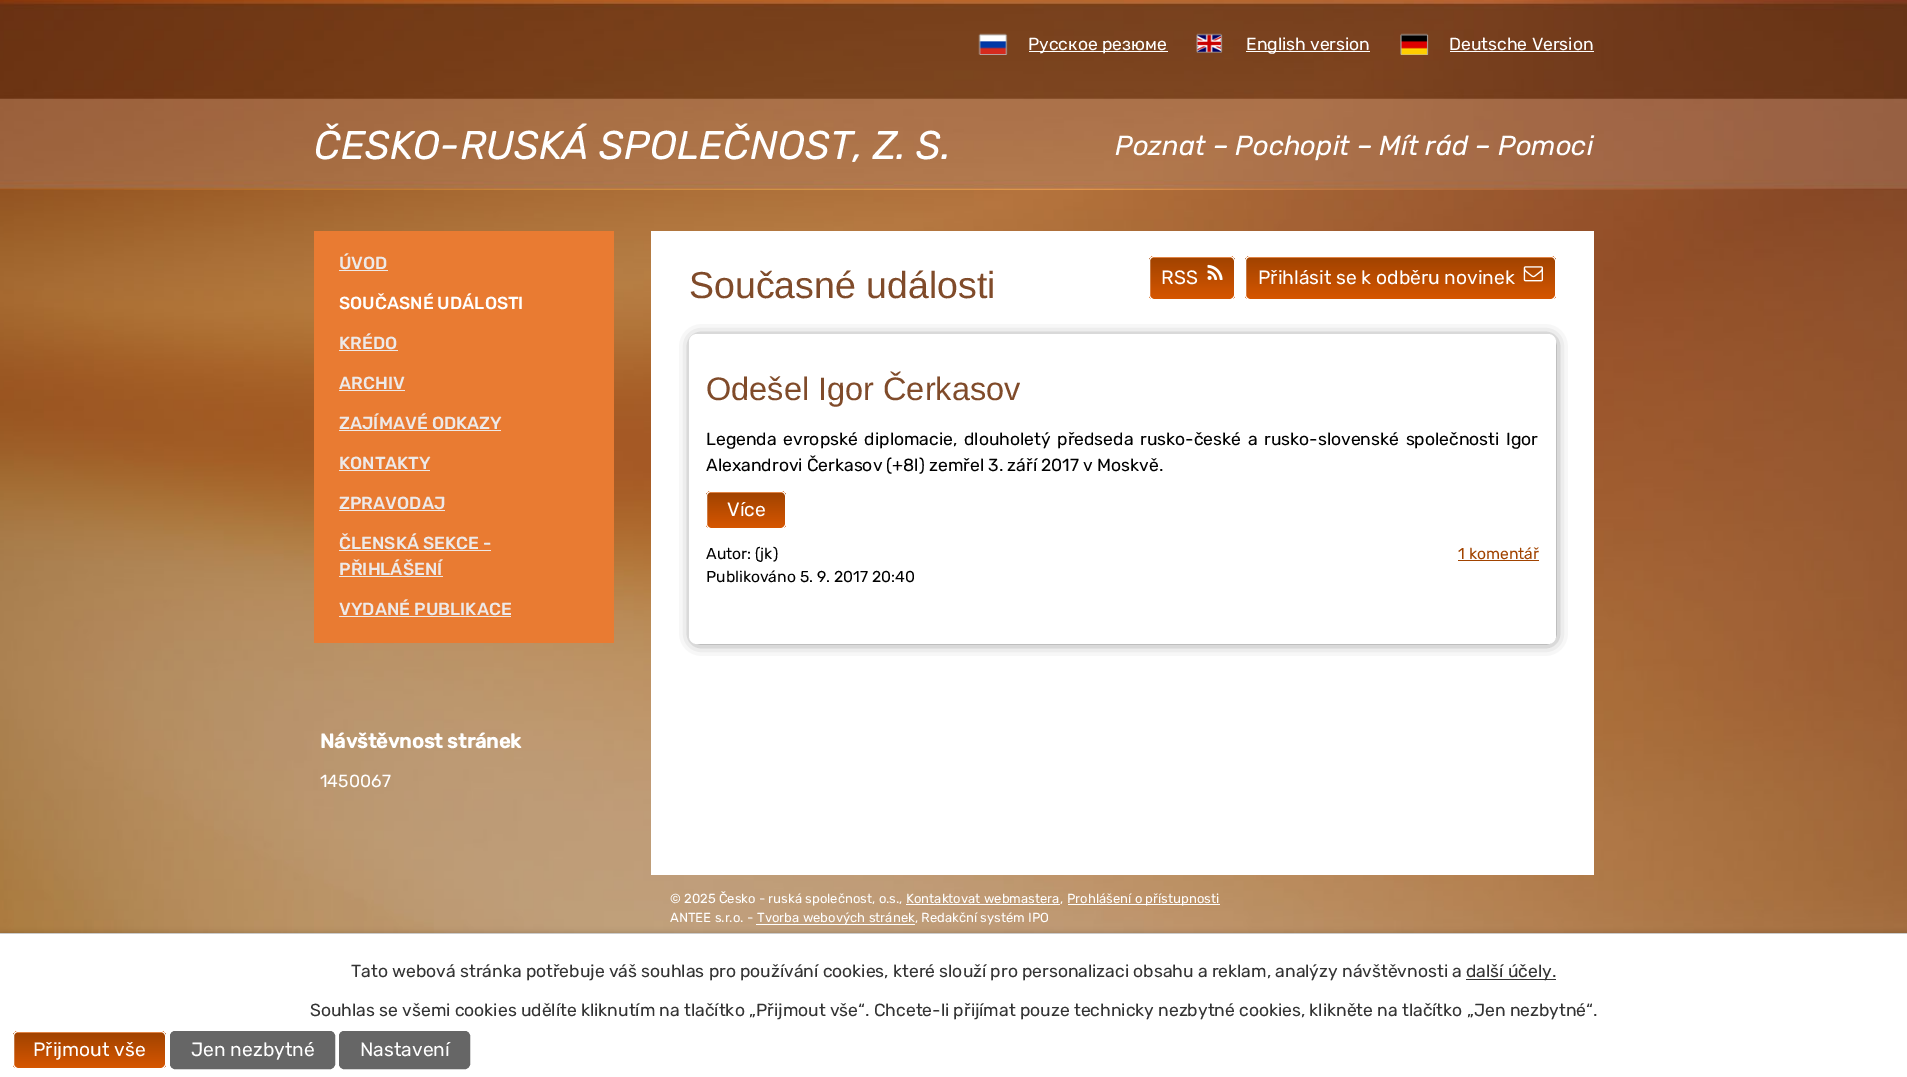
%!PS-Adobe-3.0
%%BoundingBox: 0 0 1907 1077
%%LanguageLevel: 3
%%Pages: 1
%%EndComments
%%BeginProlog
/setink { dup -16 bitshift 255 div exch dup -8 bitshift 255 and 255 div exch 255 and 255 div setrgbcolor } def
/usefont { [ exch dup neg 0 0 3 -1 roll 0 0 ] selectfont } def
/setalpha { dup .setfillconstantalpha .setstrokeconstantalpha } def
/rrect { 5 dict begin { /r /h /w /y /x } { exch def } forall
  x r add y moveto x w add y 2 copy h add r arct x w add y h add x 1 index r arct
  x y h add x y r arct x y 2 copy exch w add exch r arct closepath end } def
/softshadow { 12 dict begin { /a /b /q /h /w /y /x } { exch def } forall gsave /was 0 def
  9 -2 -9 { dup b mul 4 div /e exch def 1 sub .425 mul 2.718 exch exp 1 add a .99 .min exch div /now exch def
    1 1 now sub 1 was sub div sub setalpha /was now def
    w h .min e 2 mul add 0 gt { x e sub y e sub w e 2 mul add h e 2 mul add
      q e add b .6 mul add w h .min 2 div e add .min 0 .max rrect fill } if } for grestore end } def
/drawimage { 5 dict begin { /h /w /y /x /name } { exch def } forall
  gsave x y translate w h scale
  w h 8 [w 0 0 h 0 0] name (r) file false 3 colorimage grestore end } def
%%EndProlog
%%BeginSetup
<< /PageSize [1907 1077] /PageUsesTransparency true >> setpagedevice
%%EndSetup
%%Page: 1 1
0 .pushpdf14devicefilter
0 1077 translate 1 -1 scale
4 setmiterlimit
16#FFFFFF setink
0 0 1907 1077 rectfill
(img1.raw) 0 190 1907 743 drawimage
(img2.raw) 0 0 1907 190 drawimage
(img3.raw) 978 33 30 22 drawimage
1029 51 139 1 rectfill
/Rubik-Regular 17.5 usefont
1028 50 moveto (Русское резюме) show
(img4.raw) 1196 33 27 20 drawimage
1246 51 124 1 rectfill
1246 50 moveto (English version) show
(img5.raw) 1400 33 29 22 drawimage
1449 50 moveto (Deutsche Version) show
1450 51 144 1 rectfill
/Rubik-LightItalic 40 usefont
314 159 moveto (ČESKO-RUSKÁ SPOLEČNOST, Z. S.) show
/Rubik-LightItalic 27.5 usefont
1115 155 moveto (Poznat – Pochopit – Mít rád – Pomoci) show
16#E97B32 setink
314 231 300 412 rectfill
/Rubik-Medium 17.5 usefont
16#EDE9E8 setink
339 269 moveto (ÚVOD) show
339 270 49 1 rectfill
16#FFFFFF setink
339 309 moveto (SOUČASNÉ UDÁLOSTI) show
16#EDE9E8 setink
339 349 moveto (KRÉDO) show
339 350 59 1 rectfill
339 389 moveto (ARCHIV) show
339 390 66 1 rectfill
339 429 moveto (ZAJÍMAVÉ ODKAZY) show
339 430 162 1 rectfill
339 469 moveto (KONTAKTY) show
339 470 91 1 rectfill
339 509 moveto (ZPRAVODAJ) show
339 510 106 1 rectfill
339 549 moveto (ČLENSKÁ SEKCE -) show
339 550 152 1 rectfill
339 575 moveto (PŘIHLÁŠENÍ) show
339 576 104 1 rectfill
339 615 moveto (VYDANÉ PUBLIKACE) show
339 616 172 1 rectfill
/Rubik-Bold 20 usefont
16#FFFFFF setink
320 748 moveto (Návštěvnost stránek) show
/Rubik-Regular 17.5 usefont
320 787 moveto (1450067) show
651 231 943 644 rectfill
/LiberationSans-Regular 37.5 usefont
16#804B2A setink
689 298 moveto (Současné události) show
gsave
1149 256 86 44 5 rrect clip newpath
gsave 1149 256 moveto 1235 256 lineto 1235 258 lineto 1149 258 lineto closepath clip newpath
<< /ShadingType 2 /ColorSpace /DeviceRGB /Coords [1150 216 1150 258] /Extend [true true] /Function << /FunctionType 2 /Domain [0 1] /C0 [0.631 0.263 0] /C1 [0.839 0.337 0] /N 1 >> >> shfill grestore
gsave 1149 258 moveto 1235 258 lineto 1235 299 lineto 1149 299 lineto closepath clip newpath
<< /ShadingType 2 /ColorSpace /DeviceRGB /Coords [1150 258 1150 299] /Extend [true true] /Function << /FunctionType 2 /Domain [0 1] /C0 [0.631 0.263 0] /C1 [0.839 0.337 0] /N 1 >> >> shfill grestore
grestore
16#FFFFFF setink
1149.5 256.5 85 43 4.5 rrect stroke
/Rubik-Regular 19.25 usefont
1161 284 moveto (RSS) show
(img6.raw) 1207 264 16 16 drawimage
gsave
1245 256 311 44 5 rrect clip newpath
gsave 1245 256 moveto 1556 256 lineto 1556 258 lineto 1245 258 lineto closepath clip newpath
<< /ShadingType 2 /ColorSpace /DeviceRGB /Coords [1246 216 1246 258] /Extend [true true] /Function << /FunctionType 2 /Domain [0 1] /C0 [0.631 0.263 0] /C1 [0.839 0.337 0] /N 1 >> >> shfill grestore
gsave 1245 258 moveto 1556 258 lineto 1556 299 lineto 1245 299 lineto closepath clip newpath
<< /ShadingType 2 /ColorSpace /DeviceRGB /Coords [1246 258 1246 299] /Extend [true true] /Function << /FunctionType 2 /Domain [0 1] /C0 [0.631 0.263 0] /C1 [0.839 0.337 0] /N 1 >> >> shfill grestore
grestore
1245.5 256.5 310 43 4.5 rrect stroke
1258 284 moveto (Přihlásit se k odběru novinek) show
(img7.raw) 1523 266 20 16 drawimage
16#000000 setink
696 341 855 298 1 7.5 1 softshadow
16#FFFFFF setink
689 334 867 310 8 rrect fill
/LiberationSans-Regular 32.5 usefont
16#804B2A setink
706 400 moveto (Odešel Igor Čerkasov) show
/Rubik-Regular 17.5 usefont
16#000000 setink
706 445 moveto 2.5 0 32 (Legenda evropské diplomacie, dlouholetý předseda rusko-české a rusko-slovenské společnosti Igor) widthshow
706 471 moveto (Alexandrovi Čerkasov \(+8l\) zemřel 3. září 2017 v Moskvě.) show
gsave
706 491 80 38 5 rrect clip newpath
gsave 706 493 moveto 786 493 lineto 786 528 lineto 706 528 lineto closepath clip newpath
<< /ShadingType 2 /ColorSpace /DeviceRGB /Coords [708 493 708 528] /Extend [true true] /Function << /FunctionType 2 /Domain [0 1] /C0 [0.631 0.263 0] /C1 [0.839 0.337 0] /N 1 >> >> shfill grestore
gsave 706 491 moveto 786 491 lineto 786 493 lineto 706 493 lineto closepath clip newpath
<< /ShadingType 2 /ColorSpace /DeviceRGB /Coords [708 458 708 493] /Extend [true true] /Function << /FunctionType 2 /Domain [0 1] /C0 [0.631 0.263 0] /C1 [0.839 0.337 0] /N 1 >> >> shfill grestore
grestore
16#FFFFFF setink
706.5 491.5 79 37 4.5 rrect stroke
/Rubik-Regular 19.25 usefont
727 516 moveto (Více) show
/Rubik-Regular 15.75 usefont
16#000000 setink
706 559 moveto (Autor: \(jk\)) show
706 582 moveto (Publikováno 5. 9. 2017 20:40) show
16#A14300 setink
1458 559 moveto (1 komentář) show
1458 560 81 1 rectfill
/Rubik-Regular 13.1 usefont
16#FFFFFF setink
670 903 moveto (© 2025 Česko - ruská společnost, o.s., Kontaktovat webmastera,) show
1068 904 152 1 rectfill
1067 903 moveto (Prohlášení o přístupnosti) show
906 904 154 1 rectfill
670 922 moveto (ANTEE s.r.o. -) show
756 924 159 1 rectfill
757 922 moveto (Tvorba webových stránek, Redakční systém IPO) show
16#000000 setink
0 933 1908 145 0 3 0.2 softshadow
16#FFFFFF setink
0 934 1907 143 rectfill
16#CCCCCC setink
0 933 1907 1 rectfill
/Rubik-Regular 17.5 usefont
16#333333 setink
351 977 moveto (Tato webová stránka potřebuje váš souhlas pro používání cookies, které slouží pro personalizaci obsahu a reklam, analýzy návštěvnosti a) show
1466 979 90 1 rectfill
1466 977 moveto (další účely.) show
310 1016 moveto (Souhlas se všemi cookies udělíte kliknutím na tlačítko „Přijmout vše“. Chcete-li přijímat pouze technicky nezbytné cookies, klikněte na tlačítko „Jen nezbytné“.) show
gsave
13 1031 153 38 5 rrect clip newpath
gsave 13 1033 moveto 166 1033 lineto 166 1068 lineto 13 1068 lineto closepath clip newpath
<< /ShadingType 2 /ColorSpace /DeviceRGB /Coords [14 1033 14 1068] /Extend [true true] /Function << /FunctionType 2 /Domain [0 1] /C0 [0.631 0.263 0] /C1 [0.839 0.337 0] /N 1 >> >> shfill grestore
gsave 13 1031 moveto 166 1031 lineto 166 1033 lineto 13 1033 lineto closepath clip newpath
<< /ShadingType 2 /ColorSpace /DeviceRGB /Coords [14 998 14 1033] /Extend [true true] /Function << /FunctionType 2 /Domain [0 1] /C0 [0.631 0.263 0] /C1 [0.839 0.337 0] /N 1 >> >> shfill grestore
grestore
16#FFFFFF setink
13.5 1031.5 152 37 4.5 rrect stroke
/Rubik-Regular 19.25 usefont
33 1056 moveto (Přijmout vše) show
16#666666 setink
170.5 1031.5 164 37 4.5 rrect gsave fill grestore
stroke
16#FFFFFF setink
191 1056 moveto (Jen nezbytné) show
16#666666 setink
339.5 1031.5 130 37 4.5 rrect gsave fill grestore
stroke
16#FFFFFF setink
360 1056 moveto (Nastavení) show
.poppdf14devicefilter showpage
%%EOF
